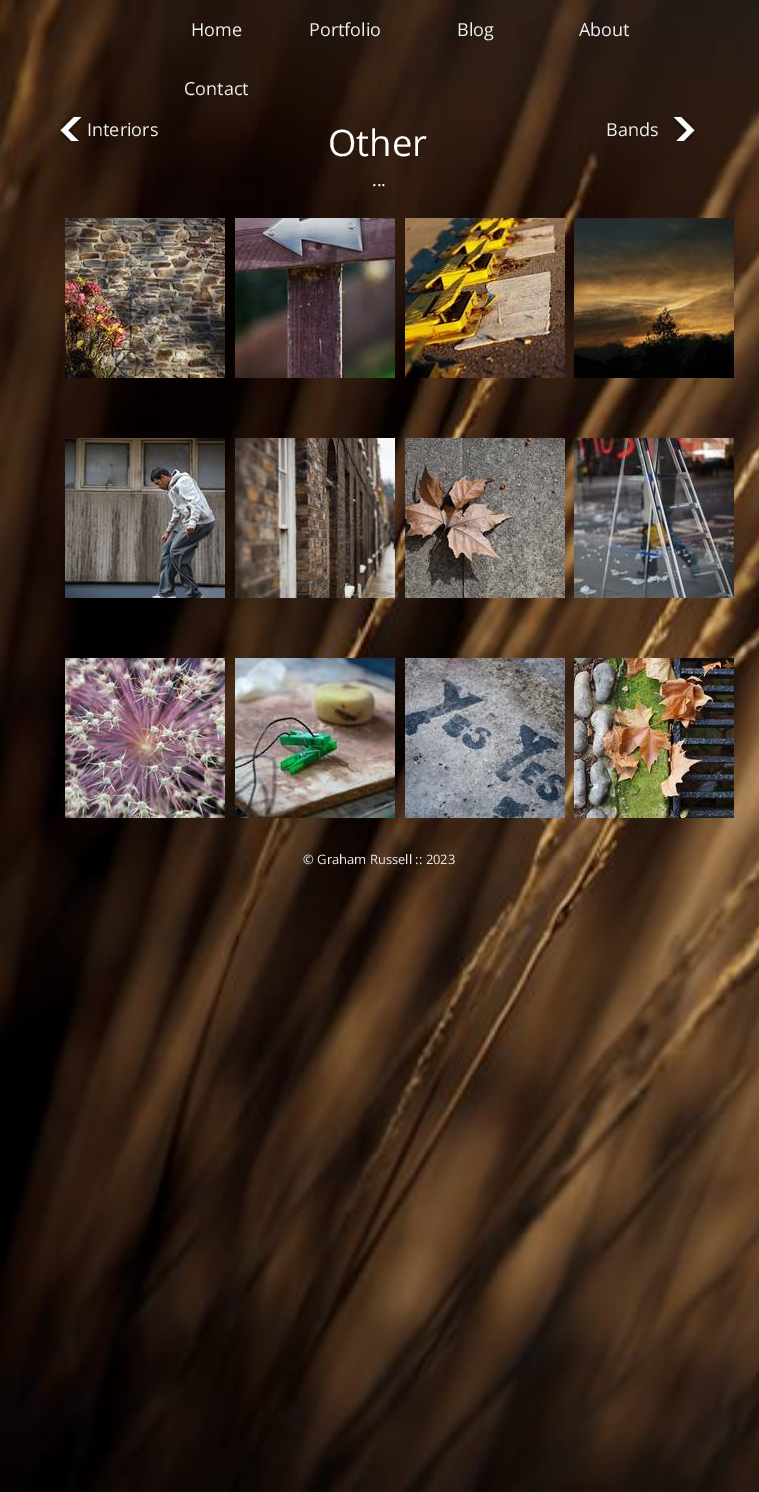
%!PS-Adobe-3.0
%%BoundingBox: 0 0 759 1492
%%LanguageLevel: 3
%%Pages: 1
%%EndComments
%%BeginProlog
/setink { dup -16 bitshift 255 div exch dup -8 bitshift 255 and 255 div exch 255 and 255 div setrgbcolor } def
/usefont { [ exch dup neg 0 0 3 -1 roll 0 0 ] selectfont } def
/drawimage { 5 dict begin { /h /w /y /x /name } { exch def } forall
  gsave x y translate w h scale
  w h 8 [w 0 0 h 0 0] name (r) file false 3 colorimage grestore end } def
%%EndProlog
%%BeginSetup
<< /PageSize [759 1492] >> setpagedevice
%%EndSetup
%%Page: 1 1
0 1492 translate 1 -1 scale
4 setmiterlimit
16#FFFFFF setink
0 0 759 1492 rectfill
(img1.raw) 0 0 759 1492 drawimage
/OpenSans-Regular 18 usefont
16#EEEEEE setink
[
    [(Home) 191 36]
    [(Portfolio) 309 36]
    [(Blog) 457 36]
    [(About) 579 36]
    [(Contact) 184 95]
] { aload pop moveto show } forall
(img2.raw) 59 117 25 24 drawimage
87 136 moveto (Interiors) show
/OpenSans-Regular 36.5 usefont
16#FFFFFF setink
328 156 moveto (Other) show
(img3.raw) 671 117 25 24 drawimage
/OpenSans-Regular 18 usefont
16#EEEEEE setink
606 136 moveto (Bands) show
16#FFFFFF setink
372 186 moveto (...) show
(img4.raw) 65 218 160 160 drawimage
(img5.raw) 235 218 160 160 drawimage
(img6.raw) 405 218 160 160 drawimage
(img7.raw) 574 218 160 160 drawimage
(img8.raw) 65 438 160 160 drawimage
(img9.raw) 235 438 160 160 drawimage
(img10.raw) 405 438 160 160 drawimage
(img11.raw) 574 438 160 160 drawimage
(img12.raw) 65 658 160 160 drawimage
(img13.raw) 235 658 160 160 drawimage
(img14.raw) 405 658 160 160 drawimage
(img15.raw) 574 658 160 160 drawimage
/OpenSans-Regular 13 usefont
16#EEEEEE setink
303 864 moveto (© Graham Russell :: 2023) show
showpage
%%EOF
